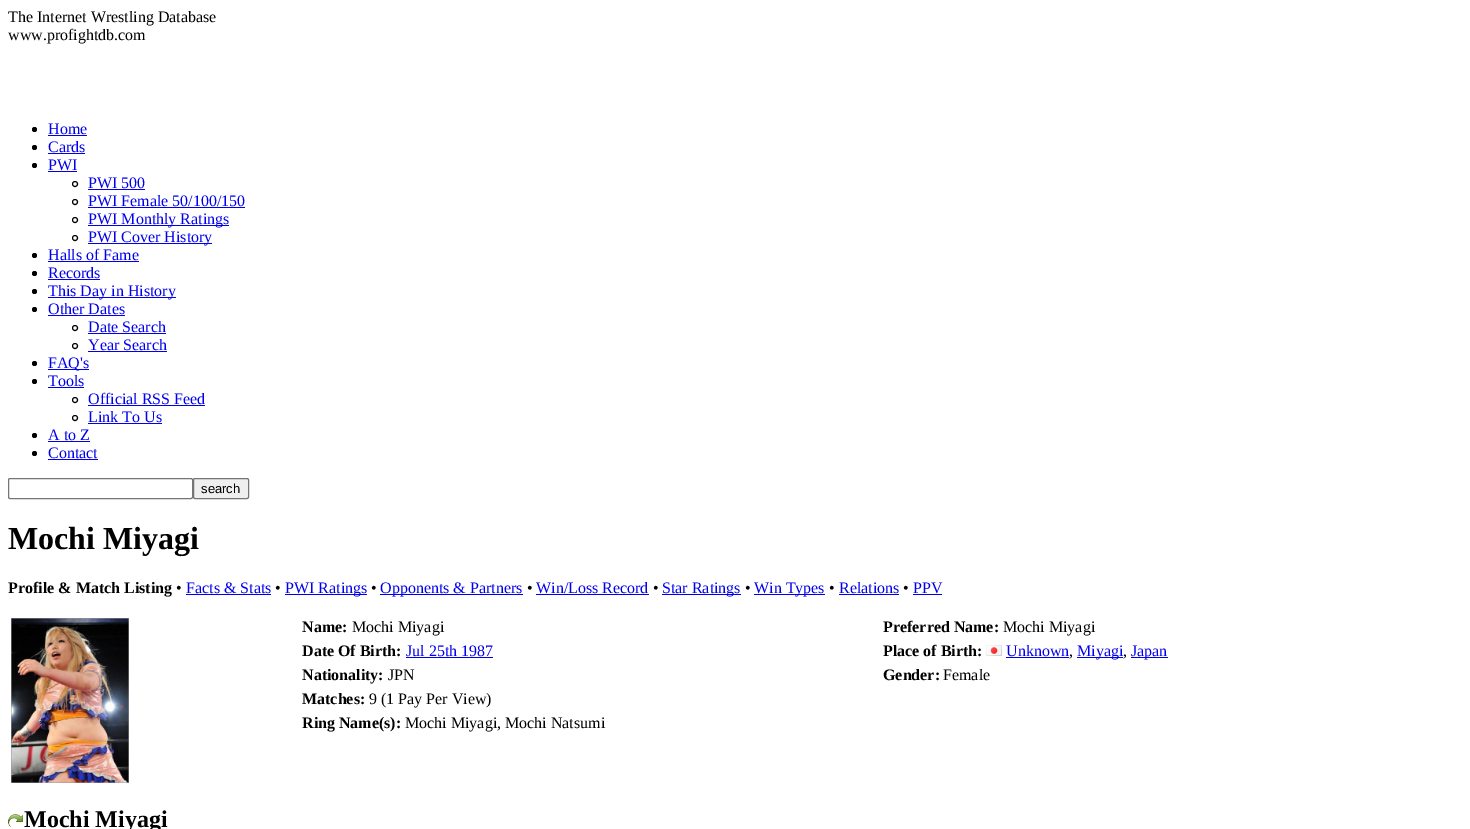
%!PS-Adobe-3.0
%%BoundingBox: 0 0 1470 829
%%LanguageLevel: 3
%%Pages: 1
%%EndComments
%%BeginProlog
/setink { dup -16 bitshift 255 div exch dup -8 bitshift 255 and 255 div exch 255 and 255 div setrgbcolor } def
/usefont { [ exch dup neg 0 0 3 -1 roll 0 0 ] selectfont } def
/disc { newpath 0 360 arc closepath } def
/rrect { 5 dict begin { /r /h /w /y /x } { exch def } forall
  x r add y moveto x w add y 2 copy h add r arct x w add y h add x 1 index r arct
  x y h add x y r arct x y 2 copy exch w add exch r arct closepath end } def
/drawimage { 5 dict begin { /h /w /y /x /name } { exch def } forall
  gsave x y translate w h scale
  w h 8 [w 0 0 h 0 0] name (r) file false 3 colorimage grestore end } def
%%EndProlog
%%BeginSetup
<< /PageSize [1470 829] >> setpagedevice
%%EndSetup
%%Page: 1 1
0 829 translate 1 -1 scale
4 setmiterlimit
16#FFFFFF setink
0 0 1470 829 rectfill
/LiberationSerif-Regular 16 usefont
16#000000 setink
8 22 moveto (The Internet Wrestling Database) show
8 40 moveto (www.profightdb.com) show
34.5 129.5 2.5 disc fill
16#0000EE setink
48 134 moveto (Home) show
48 135 39 1 rectfill
16#000000 setink
34.5 147.5 2.5 disc fill
16#0000EE setink
48 152 moveto (Cards) show
48 153 37 1 rectfill
16#000000 setink
34.5 165.5 2.5 disc fill
16#0000EE setink
48 170 moveto (PWI) show
48 171 29 1 rectfill
16#000000 setink
75 184 2.5 disc stroke
16#0000EE setink
88 188 moveto (PWI 500) show
88 189 57 1 rectfill
16#000000 setink
75 202 2.5 disc stroke
16#0000EE setink
88 206 moveto (PWI Female 50/100/150) show
88 207 157 1 rectfill
16#000000 setink
75 220 2.5 disc stroke
16#0000EE setink
88 225 141 1 rectfill
88 224 moveto (PWI Monthly Ratings) show
16#000000 setink
75 238 2.5 disc stroke
16#0000EE setink
88 243 124 1 rectfill
88 242 moveto (PWI Cover History) show
16#000000 setink
34.5 255.5 2.5 disc fill
16#0000EE setink
48 260 moveto (Halls of Fame) show
48 261 91 1 rectfill
16#000000 setink
34.5 273.5 2.5 disc fill
16#0000EE setink
48 278 moveto (Records) show
48 279 52 1 rectfill
16#000000 setink
34.5 291.5 2.5 disc fill
16#0000EE setink
48 297 128 1 rectfill
48 296 moveto (This Day in History) show
16#000000 setink
34.5 309.5 2.5 disc fill
16#0000EE setink
48 314 moveto (Other Dates) show
48 315 77 1 rectfill
16#000000 setink
75 328 2.5 disc stroke
16#0000EE setink
88 332 moveto (Date Search) show
88 333 78 1 rectfill
16#000000 setink
75 346 2.5 disc stroke
16#0000EE setink
88 350 moveto (Year Search) show
88 351 79 1 rectfill
16#000000 setink
34.5 363.5 2.5 disc fill
16#0000EE setink
48 369 41 1 rectfill
48 368 moveto (FAQ's) show
16#000000 setink
34.5 381.5 2.5 disc fill
16#0000EE setink
48 386 moveto (Tools) show
48 387 36 1 rectfill
16#000000 setink
75 400 2.5 disc stroke
16#0000EE setink
88 404 moveto (Official RSS Feed) show
88 405 117 1 rectfill
16#000000 setink
75 418 2.5 disc stroke
16#0000EE setink
88 422 moveto (Link To Us) show
88 423 74 1 rectfill
16#000000 setink
34.5 435.5 2.5 disc fill
16#0000EE setink
48 440 moveto (A to Z) show
48 441 42 1 rectfill
16#000000 setink
34.5 453.5 2.5 disc fill
16#0000EE setink
48 458 moveto (Contact) show
48 459 50 1 rectfill
16#767676 setink
8.5 478.5 184 20 1.5 rrect stroke
16#EFEFEF setink
193.5 478.5 55 20 1.5 rrect gsave fill grestore
16#767676 setink
stroke
/LiberationSans-Regular 13 usefont
16#000000 setink
201 493 moveto (search) show
/LiberationSerif-Bold 32 usefont
8 549 moveto (Mochi Miyagi) show
/LiberationSerif-Bold 16 usefont
8 593 moveto (Profile & Match Listing) show
/LiberationSerif-Regular 16 usefont
176 593 moveto (•) show
16#0000EE setink
186 593 moveto (Facts & Stats) show
186 594 85 1 rectfill
16#000000 setink
275 593 moveto (•) show
16#0000EE setink
285 594 82 1 rectfill
285 593 moveto (PWI Ratings) show
16#000000 setink
371 593 moveto (•) show
16#0000EE setink
380 594 143 1 rectfill
380 593 moveto (Opponents & Partners) show
16#000000 setink
527 593 moveto (•) show
16#0000EE setink
536 593 moveto (Win/Loss Record) show
536 594 113 1 rectfill
16#000000 setink
653 593 moveto (•) show
16#0000EE setink
662 594 79 1 rectfill
662 593 moveto (Star Ratings) show
16#000000 setink
745 593 moveto (•) show
16#0000EE setink
754 594 71 1 rectfill
754 593 moveto (Win Types) show
16#000000 setink
829 593 moveto (•) show
16#0000EE setink
839 593 moveto (Relations) show
839 594 60 1 rectfill
16#000000 setink
903 593 moveto (•) show
16#0000EE setink
913 593 moveto (PPV) show
913 594 29 1 rectfill
(img1.raw) 11 618 118 165 drawimage
/LiberationSerif-Bold 16 usefont
16#000000 setink
302 632 moveto (Name:) show
/LiberationSerif-Regular 16 usefont
352 632 moveto (Mochi Miyagi) show
/LiberationSerif-Bold 16 usefont
883 632 moveto (Preferred Name:) show
/LiberationSerif-Regular 16 usefont
1003 632 moveto (Mochi Miyagi) show
/LiberationSerif-Bold 16 usefont
302 656 moveto (Date Of Birth:) show
/LiberationSerif-Regular 16 usefont
16#0000EE setink
406 656 moveto (Jul 25th 1987) show
406 657 87 1 rectfill
/LiberationSerif-Bold 16 usefont
16#000000 setink
883 656 moveto (Place of Birth:) show
(img2.raw) 986 645 16 11 drawimage
/LiberationSerif-Regular 16 usefont
16#0000EE setink
1006 656 moveto (Unknown) show
1006 657 63 1 rectfill
16#000000 setink
1069 656 moveto (,) show
16#0000EE setink
1077 657 46 1 rectfill
1077 656 moveto (Miyagi) show
16#000000 setink
1123 656 moveto (,) show
16#0000EE setink
1131 657 37 1 rectfill
1131 656 moveto (Japan) show
/LiberationSerif-Bold 16 usefont
16#000000 setink
302 680 moveto (Nationality:) show
/LiberationSerif-Regular 16 usefont
388 680 moveto (JPN) show
/LiberationSerif-Bold 16 usefont
883 680 moveto (Gender:) show
/LiberationSerif-Regular 16 usefont
943 680 moveto (Female) show
/LiberationSerif-Bold 16 usefont
302 704 moveto (Matches:) show
/LiberationSerif-Regular 16 usefont
369 704 moveto (9 \(1 Pay Per View\)) show
/LiberationSerif-Bold 16 usefont
302 728 moveto (Ring Name\(s\):) show
/LiberationSerif-Regular 16 usefont
405 728 moveto (Mochi Miyagi, Mochi Natsumi) show
(img3.raw) 8 814 15 13 drawimage
/LiberationSerif-Bold 24 usefont
24 827 moveto (Mochi Miyagi) show
showpage
%%EOF
